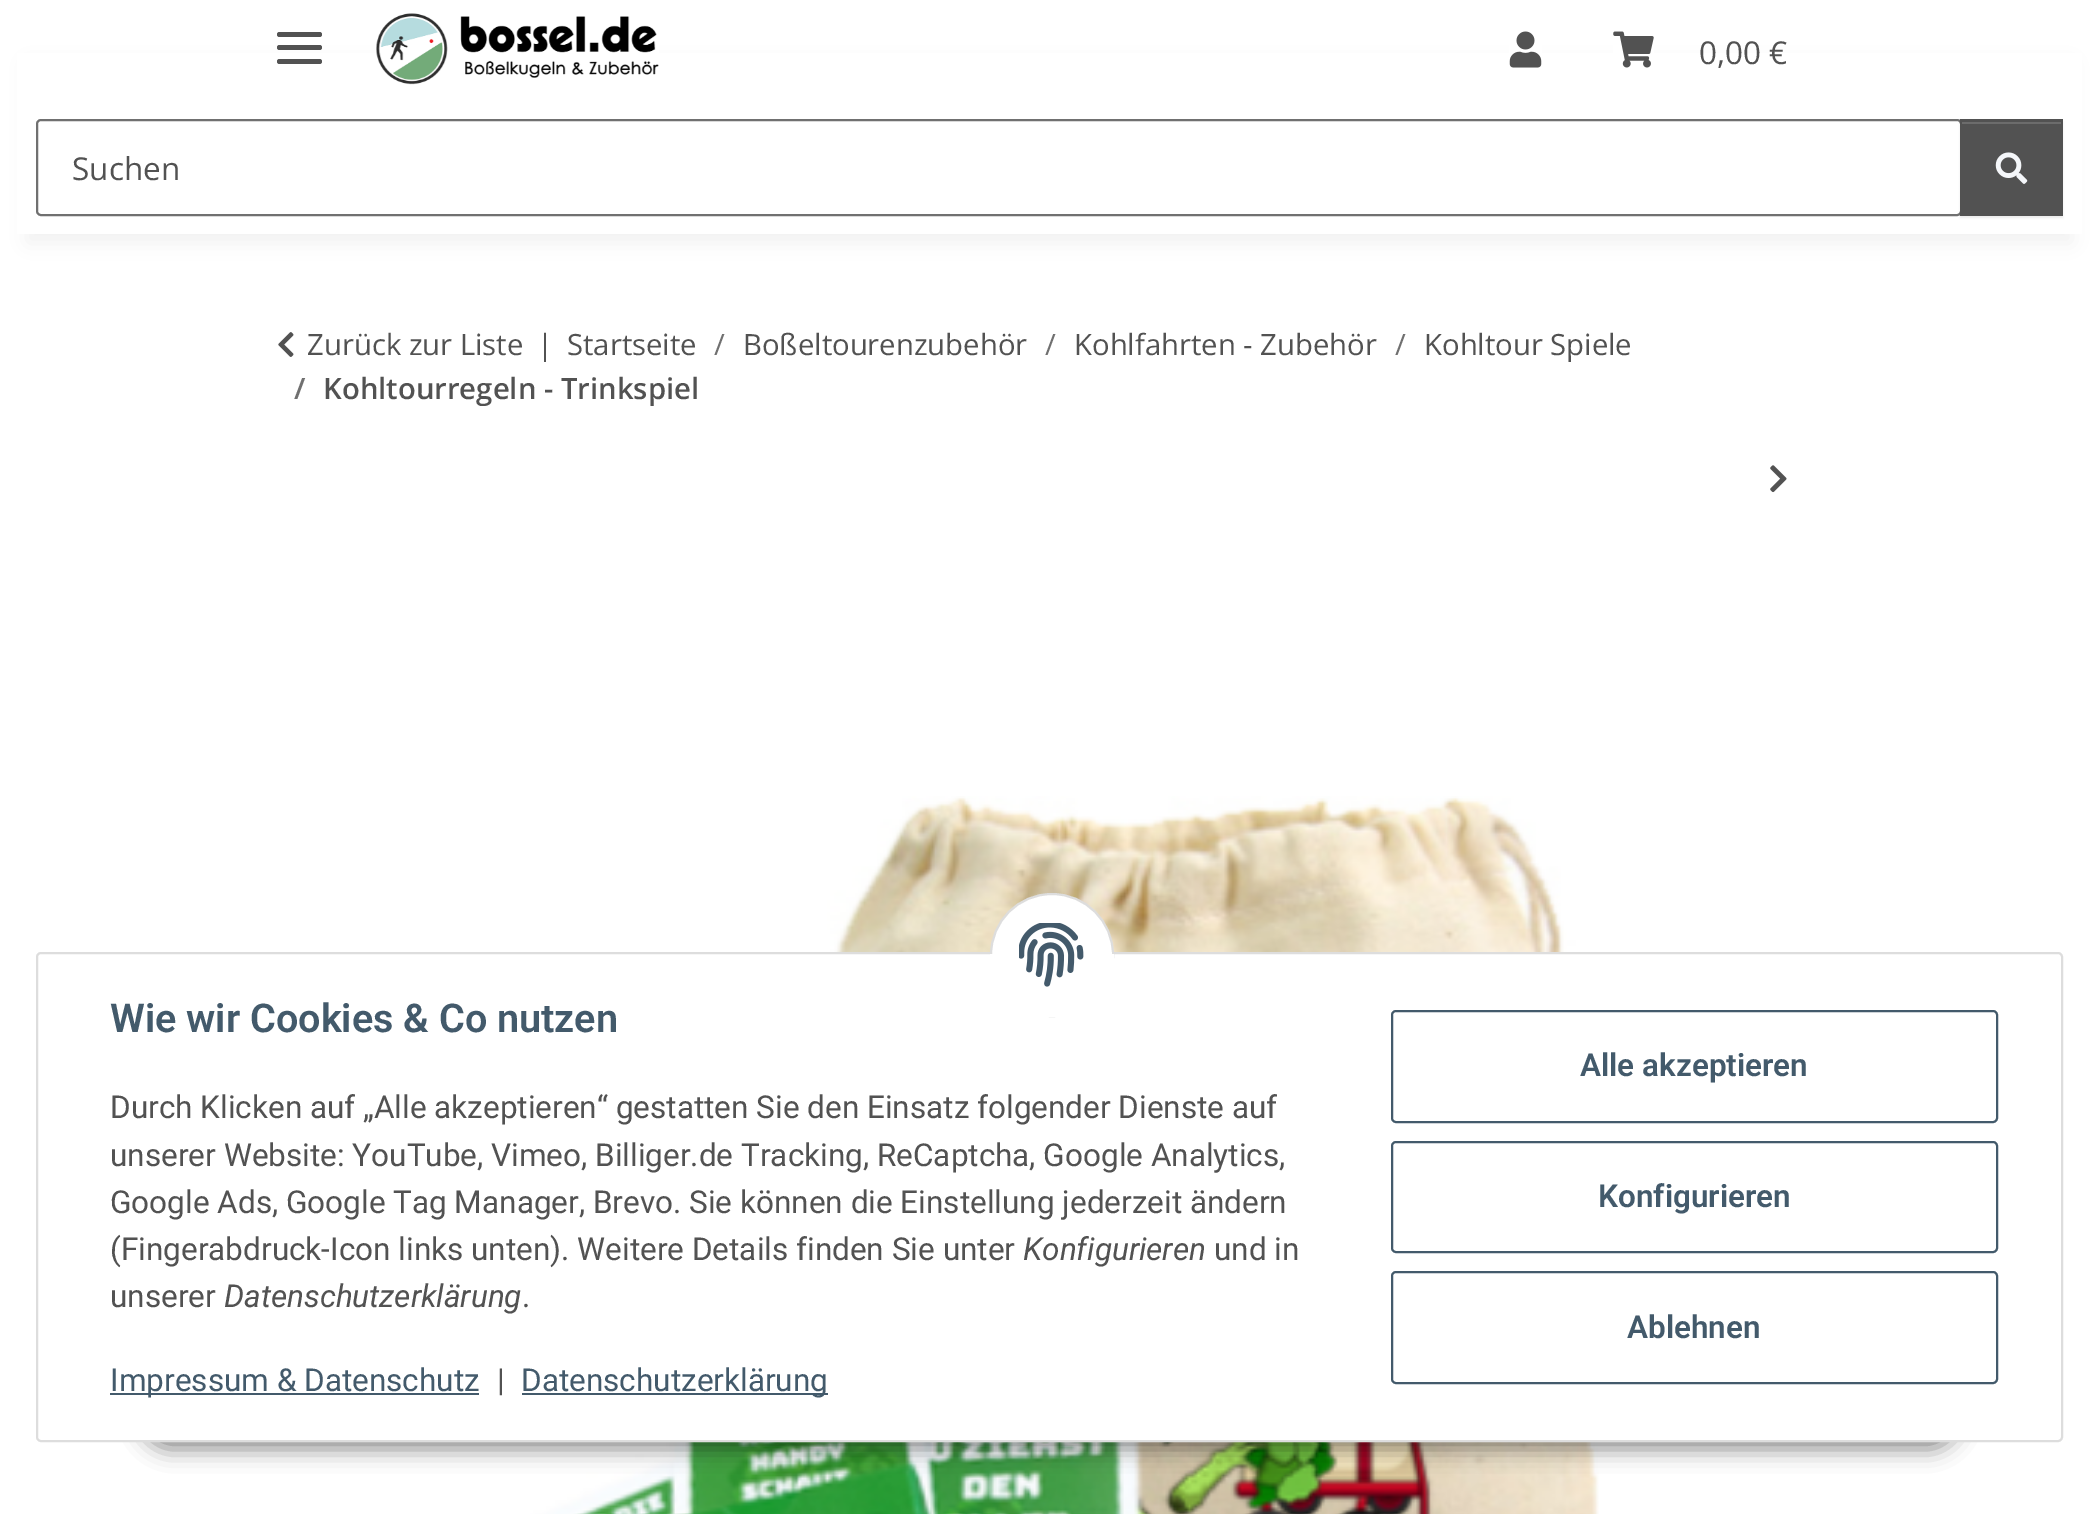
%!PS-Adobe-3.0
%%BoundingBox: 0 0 2098 1514
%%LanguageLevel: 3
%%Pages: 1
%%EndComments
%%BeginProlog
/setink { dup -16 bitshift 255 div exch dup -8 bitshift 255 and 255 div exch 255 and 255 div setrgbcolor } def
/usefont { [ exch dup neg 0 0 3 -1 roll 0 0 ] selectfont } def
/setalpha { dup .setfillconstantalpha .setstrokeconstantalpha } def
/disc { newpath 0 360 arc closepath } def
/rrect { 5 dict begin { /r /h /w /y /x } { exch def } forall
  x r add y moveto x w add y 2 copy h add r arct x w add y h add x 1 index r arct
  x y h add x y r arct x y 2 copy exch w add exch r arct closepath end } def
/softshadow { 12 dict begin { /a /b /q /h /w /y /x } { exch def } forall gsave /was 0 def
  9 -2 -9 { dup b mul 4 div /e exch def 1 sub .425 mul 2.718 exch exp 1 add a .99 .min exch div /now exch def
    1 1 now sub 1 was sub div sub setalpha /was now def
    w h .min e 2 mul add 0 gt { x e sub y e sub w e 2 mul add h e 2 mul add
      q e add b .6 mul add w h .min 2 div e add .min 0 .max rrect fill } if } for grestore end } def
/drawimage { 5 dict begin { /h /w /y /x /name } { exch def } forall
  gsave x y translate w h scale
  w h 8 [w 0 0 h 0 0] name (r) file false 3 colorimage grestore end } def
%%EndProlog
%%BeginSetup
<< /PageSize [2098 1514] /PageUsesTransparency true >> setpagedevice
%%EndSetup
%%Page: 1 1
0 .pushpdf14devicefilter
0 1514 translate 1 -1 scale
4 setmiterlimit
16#FFFFFF setink
0 0 2098 1514 rectfill
16#000000 setink
27 63 2045 180 0 10 0.06 softshadow
16#FFFFFF setink
17 53 2065 181 rectfill
16#525252 setink
277 45 45 5 2.5 rrect fill
277 32 45 5 2.5 rrect fill
277 59 45 5 2.5 rrect fill
(img1.raw) 376 13 283 72 drawimage
(img2.raw) 1509 31 33 37 drawimage
(img3.raw) 1613 31 41 37 drawimage
/OpenSans-Regular 31.5 usefont
1699 64 moveto (0,00 €) show
16#707070 setink
2 setlinewidth
37 120 1924 95 4 rrect stroke
16#525252 setink
72 180 moveto (Suchen) show
16#000000 setink
1960 122 103 96 0 1 0.07 softshadow
16#525252 setink
1960 119 103 97 rectfill
16#6C6C6C setink
1962 122 99 2 rectfill
(img4.raw) 1995 152 33 32 drawimage
(img5.raw) 278 332 16 25 drawimage
/OpenSans-Regular 29.25 usefont
16#525252 setink
[
    [(Zurück zur Liste) 307 355]
    [(|) 537 355]
    [(Startseite) 567 355]
] { aload pop moveto show } forall
16#707070 setink
714 355 moveto (/) show
16#525252 setink
743 355 moveto (Boßeltourenzubehör) show
16#707070 setink
1045 355 moveto (/) show
16#525252 setink
1074 355 moveto (Kohlfahrten - Zubehör) show
16#707070 setink
1395 355 moveto (/) show
16#525252 setink
1424 355 moveto (Kohltour Spiele) show
/OpenSans-SemiBold 29.25 usefont
16#707070 setink
294 399 moveto (/) show
16#525252 setink
323 399 moveto (Kohltourregeln - Trinkspiel) show
(img6.raw) 1770 465 17 28 drawimage
(img7.raw) 447 796 1152 718 drawimage
16#000000 setink
140 1377 1820 72 36 11 0.45 softshadow
16#FFFFFF setink
37 953 2025 488 4 rrect gsave fill grestore
16#DDDDDD setink
stroke
16#FFFFFF setink
1052 955 61 disc gsave fill grestore
16#DDDDDD setink
stroke
16#FFFFFF setink
990 954 124 63 rectfill
(img8.raw) 1019 923 65 64 drawimage
/Roboto-SemiBold 39.6 usefont
16#435A6B setink
110 1032 moveto (Wie wir Cookies & Co nutzen) show
/Roboto-Regular 31.5 usefont
16#525252 setink
[
    [(Durch Klicken auf „Alle akzeptieren“ gestatten Sie den Einsatz folgender Dienste auf) 110 1118]
    [(unserer Website: YouTube, Vimeo, Billiger.de Tracking, ReCaptcha, Google Analytics,) 110 1166]
    [(Google Ads, Google Tag Manager, Brevo. Sie können die Einstellung jederzeit ändern) 110 1213]
    [(\(Fingerabdruck-Icon links unten\). Weitere Details finden Sie unter) 110 1260]
] { aload pop moveto show } forall
/Roboto-Italic 31.5 usefont
1023 1260 moveto (Konfigurieren) show
/Roboto-Regular 31.5 usefont
1214 1260 moveto (und in) show
110 1307 moveto (unserer) show
/Roboto-Italic 31.5 usefont
224 1307 moveto (Datenschutzerklärung) show
/Roboto-Regular 31.5 usefont
522 1307 moveto (.) show
16#435A6B setink
110 1393 369 2 rectfill
110 1391 moveto (Impressum & Datenschutz) show
16#525252 setink
497 1391 moveto (|) show
16#435A6B setink
522 1393 306 2 rectfill
521 1391 moveto (Datenschutzerklärung) show
1392 1011 605 111 4 rrect stroke
/Roboto-SemiBold 31.5 usefont
1580 1076 moveto (Alle akzeptieren) show
1392 1142 605 110 4 rrect stroke
1598 1207 moveto (Konfigurieren) show
1392 1272 605 111 4 rrect stroke
1627 1338 moveto (Ablehnen) show
.poppdf14devicefilter showpage
%%EOF
